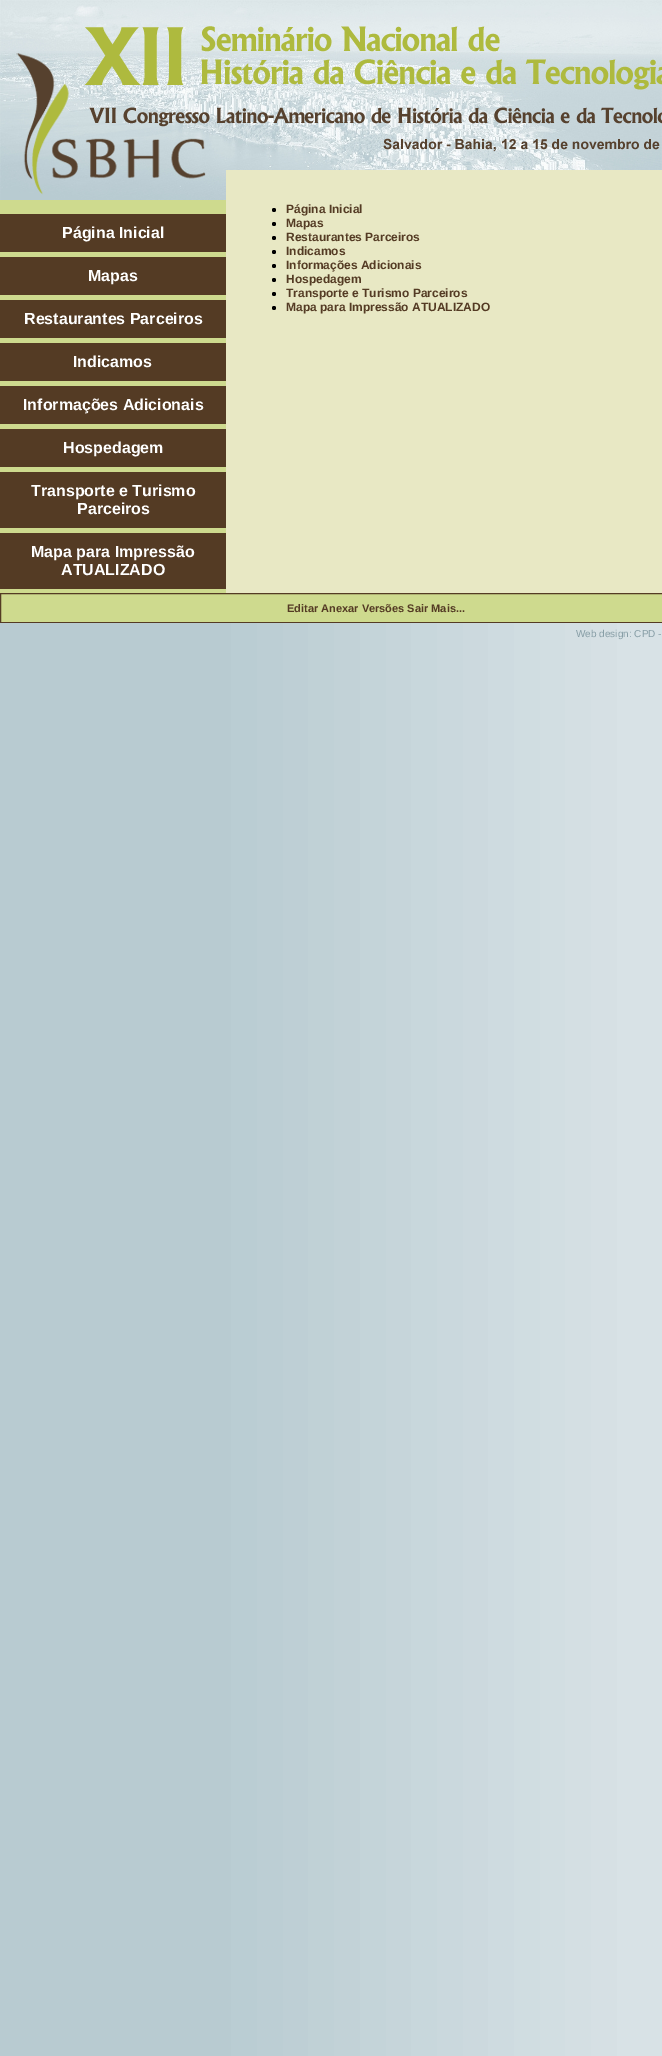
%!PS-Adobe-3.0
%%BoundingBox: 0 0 662 2056
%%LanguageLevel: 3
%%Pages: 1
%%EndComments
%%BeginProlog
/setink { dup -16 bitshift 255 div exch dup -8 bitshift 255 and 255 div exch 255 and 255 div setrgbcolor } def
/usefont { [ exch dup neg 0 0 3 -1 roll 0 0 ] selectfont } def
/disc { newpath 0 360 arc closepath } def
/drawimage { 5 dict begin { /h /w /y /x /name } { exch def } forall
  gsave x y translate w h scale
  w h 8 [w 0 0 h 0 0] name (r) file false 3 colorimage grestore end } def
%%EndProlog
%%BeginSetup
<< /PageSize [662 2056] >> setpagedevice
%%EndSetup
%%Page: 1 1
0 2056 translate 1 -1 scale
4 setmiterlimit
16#FFFFFF setink
0 0 662 2056 rectfill
(img1.raw) 0 0 662 200 drawimage
(img2.raw) 16 26 646 169 drawimage
16#CEDA8E setink
0 200 662 422 rectfill
16#543B24 setink
0 214 226 38 rectfill
/LiberationSans-Bold 16 usefont
16#FFFFFF setink
62 238 moveto (Página Inicial) show
16#543B24 setink
0 257 226 38 rectfill
16#FFFFFF setink
88 281 moveto (Mapas) show
16#543B24 setink
0 300 226 38 rectfill
16#FFFFFF setink
24 324 moveto (Restaurantes Parceiros) show
16#543B24 setink
0 343 226 38 rectfill
16#FFFFFF setink
73 367 moveto (Indicamos) show
16#543B24 setink
0 386 226 38 rectfill
16#FFFFFF setink
23 410 moveto (Informações Adicionais) show
16#543B24 setink
0 429 226 38 rectfill
16#FFFFFF setink
63 453 moveto (Hospedagem) show
16#543B24 setink
0 472 226 56 rectfill
16#FFFFFF setink
31 496 moveto (Transporte e Turismo) show
77 514 moveto (Parceiros) show
16#543B24 setink
0 533 226 56 rectfill
16#FFFFFF setink
31 557 moveto (Mapa para Impressão) show
61 575 moveto (ATUALIZADO) show
16#E8E8C4 setink
226 170 436 423 rectfill
16#000000 setink
274 210 2 disc fill
/LiberationSans-Bold 12 usefont
16#543B24 setink
286 213 moveto (Página Inicial) show
16#000000 setink
274 224 2 disc fill
16#543B24 setink
286 227 moveto (Mapas) show
16#000000 setink
274 238 2 disc fill
16#543B24 setink
286 241 moveto (Restaurantes Parceiros) show
16#000000 setink
274 252 2 disc fill
16#543B24 setink
286 255 moveto (Indicamos) show
16#000000 setink
274 266 2 disc fill
16#543B24 setink
286 269 moveto (Informações Adicionais) show
16#000000 setink
274 280 2 disc fill
16#543B24 setink
286 283 moveto (Hospedagem) show
16#000000 setink
274 294 2 disc fill
16#543B24 setink
286 297 moveto (Transporte e Turismo Parceiros) show
16#000000 setink
274 308 2 disc fill
16#543B24 setink
286 311 moveto (Mapa para Impressão ATUALIZADO) show
0.5 593.5 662 29 rectstroke
/LiberationSans-Bold 11 usefont
287 612 moveto (Editar Anexar Versões Sair Mais...) show
(img3.raw) 0 623 662 1433 drawimage
/LiberationSans-Regular 10 usefont
16#879EA6 setink
576 637 moveto (Web design: CPD -) show
showpage
%%EOF
